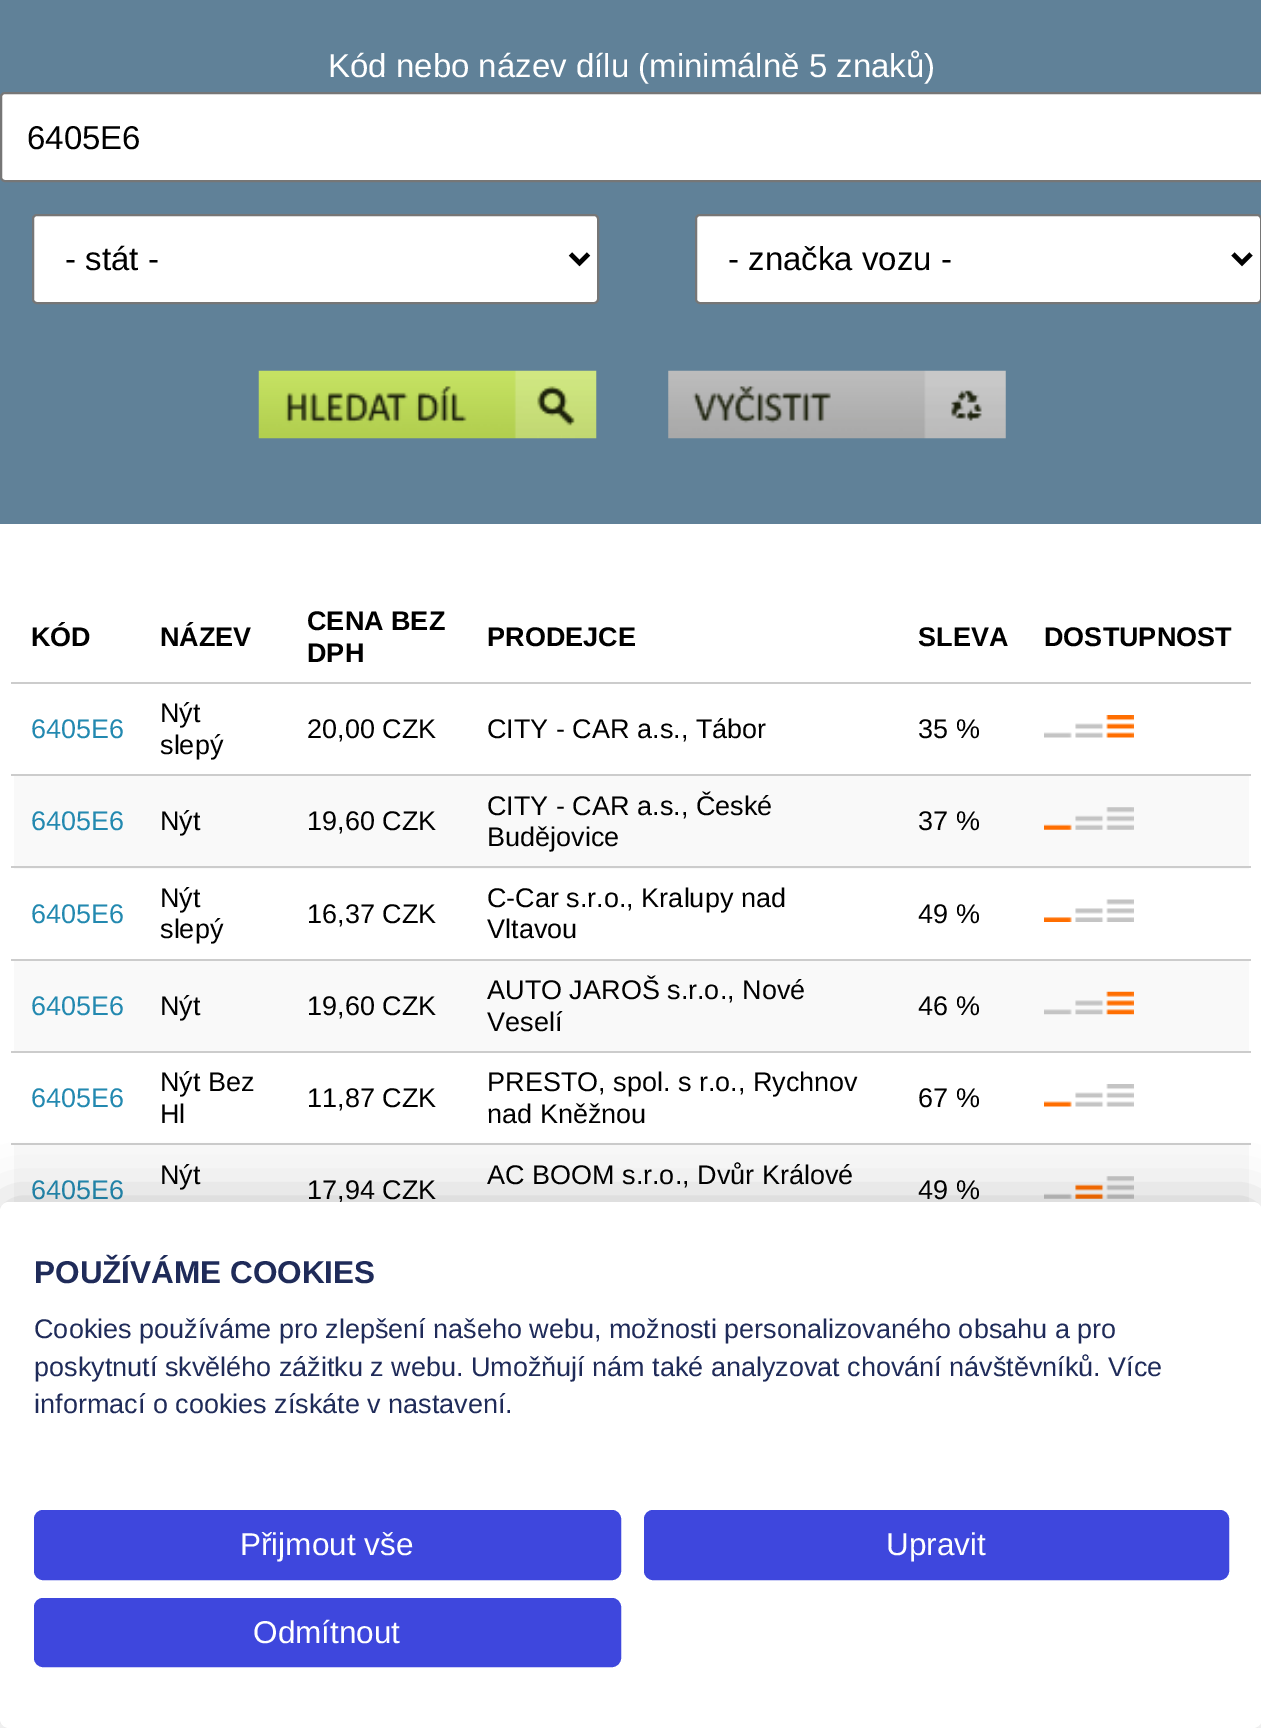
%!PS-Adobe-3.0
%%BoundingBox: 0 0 1261 1728
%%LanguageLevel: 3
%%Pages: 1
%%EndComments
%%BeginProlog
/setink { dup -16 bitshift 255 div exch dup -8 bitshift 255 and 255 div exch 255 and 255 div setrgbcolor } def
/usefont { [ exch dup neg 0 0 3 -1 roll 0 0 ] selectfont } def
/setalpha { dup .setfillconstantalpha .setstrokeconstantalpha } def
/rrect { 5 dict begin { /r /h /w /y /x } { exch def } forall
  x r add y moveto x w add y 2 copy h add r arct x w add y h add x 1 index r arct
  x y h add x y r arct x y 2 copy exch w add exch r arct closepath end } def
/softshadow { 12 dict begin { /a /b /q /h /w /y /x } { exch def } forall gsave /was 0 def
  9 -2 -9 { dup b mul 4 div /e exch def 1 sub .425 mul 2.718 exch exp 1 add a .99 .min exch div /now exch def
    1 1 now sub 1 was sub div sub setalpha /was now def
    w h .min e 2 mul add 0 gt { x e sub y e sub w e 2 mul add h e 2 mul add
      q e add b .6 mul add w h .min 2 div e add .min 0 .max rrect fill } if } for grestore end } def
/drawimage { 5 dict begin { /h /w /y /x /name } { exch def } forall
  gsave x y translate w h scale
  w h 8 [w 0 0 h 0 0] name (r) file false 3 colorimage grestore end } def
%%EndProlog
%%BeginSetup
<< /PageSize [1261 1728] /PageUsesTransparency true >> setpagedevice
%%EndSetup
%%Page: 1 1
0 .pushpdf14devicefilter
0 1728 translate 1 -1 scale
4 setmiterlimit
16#FFFFFF setink
0 0 1261 1728 rectfill
16#608198 setink
0 0 1261 524 rectfill
/LiberationSans-Regular 33 usefont
16#FFFFFF setink
328 77 moveto (Kód nebo název dílu \(minimálně 5 znaků\)) show
1 93 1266 88 4 rrect gsave fill grestore
16#767676 setink
2 setlinewidth
stroke
16#000000 setink
27 149 moveto (6405E6) show
16#FFFFFF setink
33 215 565 88 4 rrect gsave fill grestore
16#767676 setink
stroke
16#000000 setink
4.5 setlinewidth
570.5 254 moveto 579.5 263 lineto 588.5 254 lineto stroke
65 270 moveto (- stát -) show
16#FFFFFF setink
696 215 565 88 4 rrect gsave fill grestore
16#767676 setink
2 setlinewidth
stroke
16#000000 setink
4.5 setlinewidth
1233 254 moveto 1242 263 lineto 1251 254 lineto stroke
728 270 moveto (- značka vozu -) show
(img1.raw) 258 370 339 69 drawimage
(img2.raw) 668 370 338 69 drawimage
/LiberationSans-Bold 27 usefont
[
    [(KÓD) 31 646]
    [(NÁZEV) 160 646]
    [(CENA BEZ) 307 630]
    [(DPH) 307 662]
    [(PRODEJCE) 487 646]
    [(SLEVA) 918 646]
    [(DOSTUPNOST) 1044 646]
] { aload pop moveto show } forall
16#CCCCCC setink
11 682 1240 2 rectfill
(img3.raw) 1044 715 90 23 drawimage
/LiberationSans-Regular 27 usefont
16#2389B0 setink
31 738 moveto (6405E6) show
16#000000 setink
[
    [(Nýt) 160 722]
    [(slepý) 160 754]
    [(20,00 CZK) 307 738]
    [(CITY - CAR a.s., Tábor) 487 738]
    [(35 %) 918 738]
] { aload pop moveto show } forall
16#CCCCCC setink
11 774 1240 2 rectfill
16#F9F9F9 setink
14 776 1235 93 rectfill
(img4.raw) 1044 807 90 23 drawimage
16#2389B0 setink
31 830 moveto (6405E6) show
16#000000 setink
[
    [(Nýt) 160 830]
    [(19,60 CZK) 307 830]
    [(CITY - CAR a.s., České) 487 815]
    [(Budějovice) 487 846]
    [(37 %) 918 830]
] { aload pop moveto show } forall
16#CCCCCC setink
11 866 1240 2 rectfill
(img5.raw) 1044 899 90 23 drawimage
16#2389B0 setink
31 923 moveto (6405E6) show
16#000000 setink
[
    [(Nýt) 160 907]
    [(slepý) 160 938]
    [(16,37 CZK) 307 923]
    [(C-Car s.r.o., Kralupy nad) 487 907]
    [(Vltavou) 487 938]
    [(49 %) 918 923]
] { aload pop moveto show } forall
16#CCCCCC setink
11 959 1240 2 rectfill
16#F9F9F9 setink
14 961 1235 90 rectfill
(img6.raw) 1044 991 90 24 drawimage
16#2389B0 setink
31 1015 moveto (6405E6) show
16#000000 setink
[
    [(Nýt) 160 1015]
    [(19,60 CZK) 307 1015]
    [(AUTO JAROŠ s.r.o., Nové) 487 999]
    [(Veselí) 487 1031]
    [(46 %) 918 1015]
] { aload pop moveto show } forall
16#CCCCCC setink
11 1051 1240 2 rectfill
(img7.raw) 1044 1084 90 23 drawimage
16#2389B0 setink
31 1107 moveto (6405E6) show
16#000000 setink
[
    [(Nýt Bez) 160 1091]
    [(Hl) 160 1123]
    [(11,87 CZK) 307 1107]
    [(PRESTO, spol. s r.o., Rychnov) 487 1091]
    [(nad Kněžnou) 487 1123]
    [(67 %) 918 1107]
] { aload pop moveto show } forall
16#CCCCCC setink
11 1143 1240 2 rectfill
16#F9F9F9 setink
14 1145 1235 57 rectfill
(img8.raw) 1044 1176 90 23 drawimage
16#2389B0 setink
31 1199 moveto (6405E6) show
16#000000 setink
[
    [(Nýt) 160 1184]
    [(17,94 CZK) 307 1199]
    [(AC BOOM s.r.o., Dvůr Králové) 487 1184]
    [(49 %) 918 1199]
] { aload pop moveto show } forall
0 1202 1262 526 9 27 0.2 softshadow
16#FFFFFF setink
0 1202 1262 526 9 rrect fill
/LiberationSans-Bold 31.5 usefont
16#1F2B59 setink
34 1283 moveto (POUŽÍVÁME COOKIES) show
/LiberationSans-Regular 27 usefont
[
    [(Cookies používáme pro zlepšení našeho webu, možnosti personalizovaného obsahu a pro) 34 1338]
    [(poskytnutí skvělého zážitku z webu. Umožňují nám také analyzovat chování návštěvníků. Více) 34 1376]
    [(informací o cookies získáte v nastavení.) 34 1413]
] { aload pop moveto show } forall
16#3E47DD setink
35 1511 585 68 8 rrect gsave fill grestore
2 setlinewidth
stroke
/LiberationSans-Regular 31.5 usefont
16#FFFFFF setink
240 1555 moveto (Přijmout vše) show
16#3E47DD setink
645 1511 583 68 8 rrect gsave fill grestore
stroke
16#FFFFFF setink
886 1555 moveto (Upravit) show
16#3E47DD setink
35 1599 585 67 8 rrect gsave fill grestore
stroke
16#FFFFFF setink
253 1643 moveto (Odmítnout) show
.poppdf14devicefilter showpage
%%EOF
